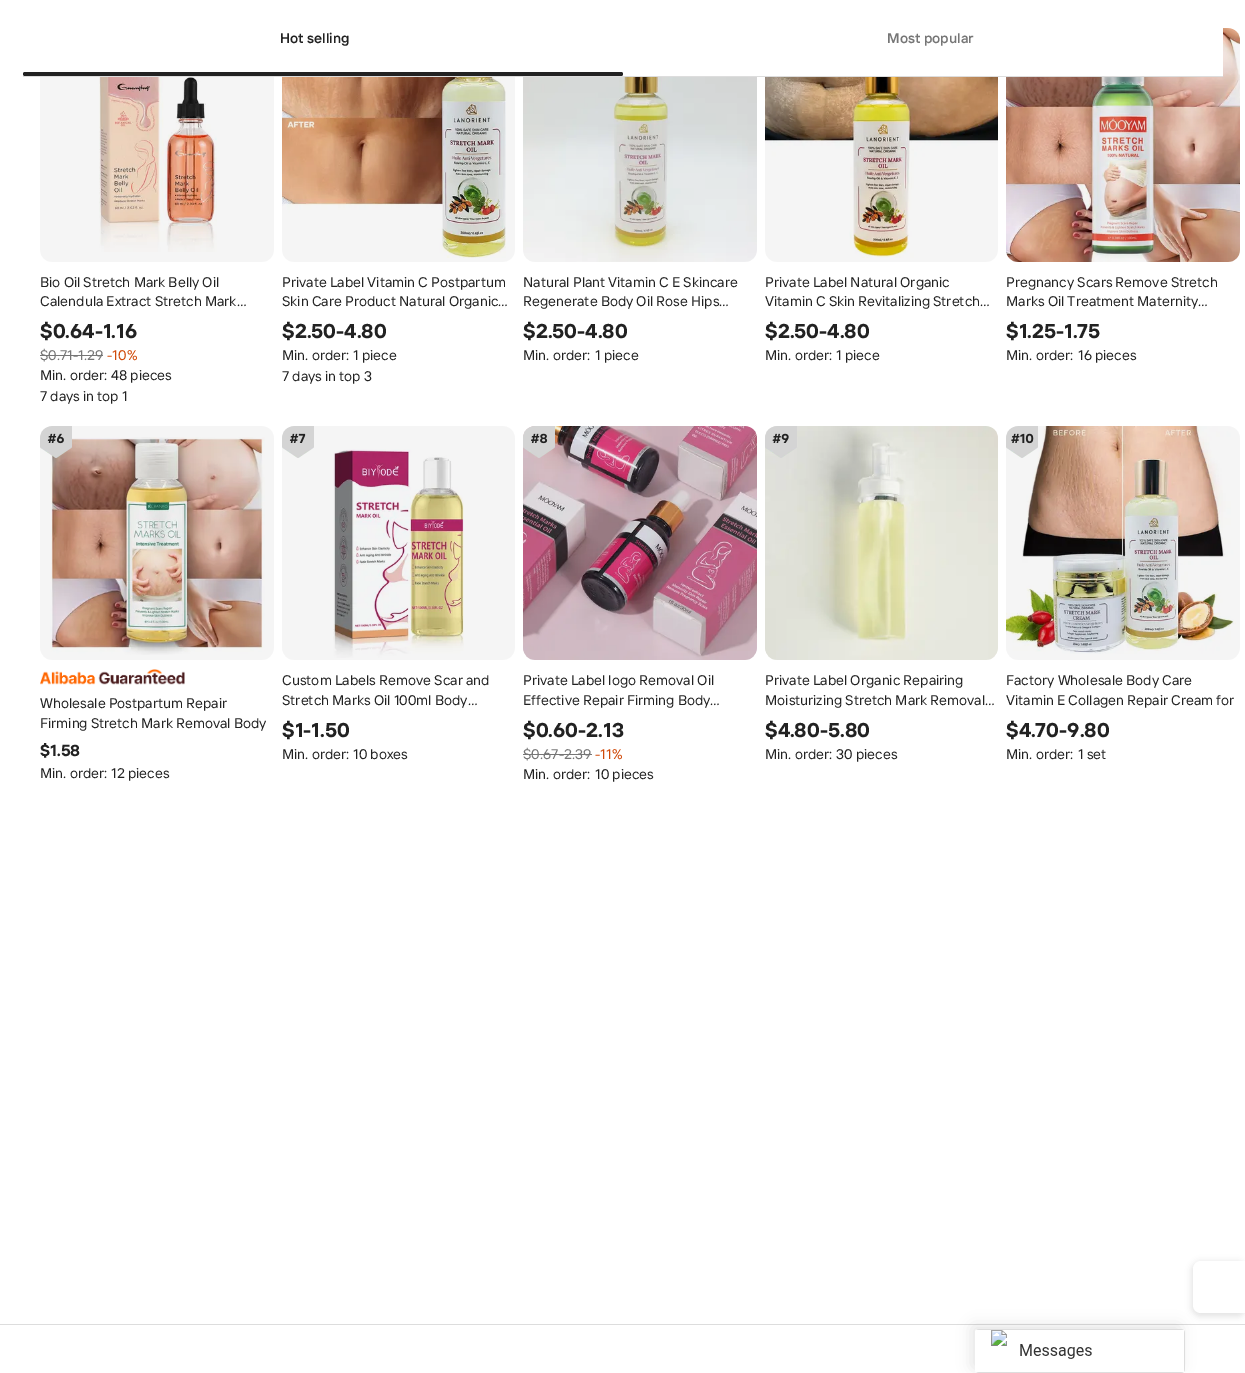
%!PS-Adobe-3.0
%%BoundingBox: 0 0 1245 1373
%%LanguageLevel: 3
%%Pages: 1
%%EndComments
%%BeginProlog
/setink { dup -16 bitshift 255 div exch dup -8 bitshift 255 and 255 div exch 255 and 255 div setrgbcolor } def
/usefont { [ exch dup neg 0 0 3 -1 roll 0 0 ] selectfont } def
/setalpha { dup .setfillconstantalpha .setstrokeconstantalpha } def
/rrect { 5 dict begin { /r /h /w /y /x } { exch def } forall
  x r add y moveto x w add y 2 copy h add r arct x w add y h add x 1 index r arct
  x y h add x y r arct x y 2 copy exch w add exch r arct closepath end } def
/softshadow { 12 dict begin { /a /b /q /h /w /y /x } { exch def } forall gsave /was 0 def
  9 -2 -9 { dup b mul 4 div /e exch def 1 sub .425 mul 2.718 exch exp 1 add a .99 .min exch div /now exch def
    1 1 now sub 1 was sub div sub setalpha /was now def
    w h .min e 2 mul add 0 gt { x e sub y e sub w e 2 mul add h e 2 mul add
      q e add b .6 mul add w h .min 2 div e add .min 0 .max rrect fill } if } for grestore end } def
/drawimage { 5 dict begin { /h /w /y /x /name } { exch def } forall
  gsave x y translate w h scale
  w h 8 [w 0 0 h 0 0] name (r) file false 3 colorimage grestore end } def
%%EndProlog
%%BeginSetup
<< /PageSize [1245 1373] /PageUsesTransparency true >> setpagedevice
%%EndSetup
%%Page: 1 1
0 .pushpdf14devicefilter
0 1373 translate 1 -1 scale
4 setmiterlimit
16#FFFFFF setink
0 0 1245 1373 rectfill
(img9.raw) 1006 28 234 234 drawimage
(img10.raw) 1006 28 234 234 drawimage
1006 28 217 48 rectfill
16#DDDDDD setink
23 76 1200 1 rectfill
/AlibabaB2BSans-SemiBold 14 usefont
16#222222 setink
280 43 moveto (Hot selling) show
23 72 600 4 2 rrect fill
16#767676 setink
887 43 moveto (Most popular) show
(img2.raw) 99 77 118 175 drawimage
(img1.raw) 40 77 234 185 drawimage
/AlibabaB2BSans-Regular 14 usefont
16#222222 setink
40 287 moveto (Bio Oil Stretch Mark Belly Oil) show
40 306 moveto (Calendula Extract Stretch Mark…) show
/AlibabaB2BSans-Bold 20 usefont
40 338 moveto ($0.64-1.16) show
/AlibabaB2BSans-Regular 14 usefont
16#767676 setink
40 360 moveto ($0.71-1.29) show
40 355 63 1 rectfill
16#D04A0A setink
107 360 moveto (-10%) show
16#222222 setink
[
    [(Min. order:) 40 380]
    [(48 pieces) 111 380]
    [(7 days in top 1) 40 401]
] { aload pop moveto show } forall
(img3.raw) 282 77 224 181 drawimage
(img4.raw) 282 77 233 185 drawimage
282 287 moveto (Private Label Vitamin C Postpartum) show
282 306 moveto (Skin Care Product Natural Organic…) show
/AlibabaB2BSans-Bold 20 usefont
282 338 moveto ($2.50-4.80) show
/AlibabaB2BSans-Regular 14 usefont
[
    [(Min. order:) 282 360]
    [(1 piece) 353 360]
    [(7 days in top 3) 282 381]
] { aload pop moveto show } forall
(img5.raw) 523 77 234 185 drawimage
(img6.raw) 523 77 234 185 drawimage
523 287 moveto (Natural Plant Vitamin C E Skincare) show
523 306 moveto (Regenerate Body Oil Rose Hips…) show
/AlibabaB2BSans-Bold 20 usefont
523 338 moveto ($2.50-4.80) show
/AlibabaB2BSans-Regular 14 usefont
523 360 moveto (Min. order:) show
595 360 moveto (1 piece) show
(img7.raw) 765 77 233 181 drawimage
(img8.raw) 765 77 233 185 drawimage
765 287 moveto (Private Label Natural Organic) show
765 306 moveto (Vitamin C Skin Revitalizing Stretch…) show
/AlibabaB2BSans-Bold 20 usefont
765 338 moveto ($2.50-4.80) show
/AlibabaB2BSans-Regular 14 usefont
[
    [(Min. order:) 765 360]
    [(1 piece) 836 360]
    [(Pregnancy Scars Remove Stretch) 1006 287]
    [(Marks Oil Treatment Maternity…) 1006 306]
] { aload pop moveto show } forall
/AlibabaB2BSans-Bold 20 usefont
1006 338 moveto ($1.25-1.75) show
/AlibabaB2BSans-Regular 14 usefont
1006 360 moveto (Min. order:) show
1078 360 moveto (16 pieces) show
(img13.raw) 50 437 215 218 drawimage
(img12.raw) 40 426 32 32 drawimage
/AlibabaB2BSans-Bold 13 usefont
48 443 moveto (#6) show
(img11.raw) 40 426 234 234 drawimage
(img14.raw) 40 669 145 16 drawimage
/AlibabaB2BSans-Regular 14 usefont
40 708 moveto (Wholesale Postpartum Repair) show
40 728 moveto (Firming Stretch Mark Removal Body) show
/AlibabaB2BSans-Bold 16 usefont
40 756 moveto ($1.58) show
/AlibabaB2BSans-Regular 14 usefont
40 778 moveto (Min. order:) show
111 778 moveto (12 pieces) show
(img16.raw) 282 426 32 32 drawimage
/AlibabaB2BSans-Bold 13 usefont
290 443 moveto (#7) show
(img17.raw) 333 449 131 209 drawimage
(img15.raw) 282 426 233 234 drawimage
/AlibabaB2BSans-Regular 14 usefont
282 685 moveto (Custom Labels Remove Scar and) show
282 705 moveto (Stretch Marks Oil 100ml Body…) show
/AlibabaB2BSans-Bold 20 usefont
282 737 moveto ($1-1.50) show
/AlibabaB2BSans-Regular 14 usefont
282 759 moveto (Min. order:) show
353 759 moveto (10 boxes) show
(img18.raw) 523 426 234 234 drawimage
(img20.raw) 523 426 32 32 drawimage
/AlibabaB2BSans-Bold 13 usefont
531 443 moveto (#8) show
(img19.raw) 523 426 234 234 drawimage
/AlibabaB2BSans-Regular 14 usefont
523 685 moveto (Private Label logo Removal Oil) show
523 705 moveto (Effective Repair Firming Body…) show
/AlibabaB2BSans-Bold 20 usefont
523 737 moveto ($0.60-2.13) show
/AlibabaB2BSans-Regular 14 usefont
16#767676 setink
523 759 moveto ($0.67-2.39) show
523 754 69 1 rectfill
16#D04A0A setink
595 759 moveto (-11%) show
16#222222 setink
523 779 moveto (Min. order:) show
595 779 moveto (10 pieces) show
(img21.raw) 765 426 233 234 drawimage
(img23.raw) 765 426 32 32 drawimage
/AlibabaB2BSans-Bold 13 usefont
772 443 moveto (#9) show
(img22.raw) 765 426 233 234 drawimage
/AlibabaB2BSans-Regular 14 usefont
765 685 moveto (Private Label Organic Repairing) show
765 705 moveto (Moisturizing Stretch Mark Removal…) show
/AlibabaB2BSans-Bold 20 usefont
765 737 moveto ($4.80-5.80) show
/AlibabaB2BSans-Regular 14 usefont
765 759 moveto (Min. order:) show
836 759 moveto (30 pieces) show
(img24.raw) 1006 426 230 228 drawimage
(img26.raw) 1006 426 32 32 drawimage
/AlibabaB2BSans-Bold 13 usefont
1011 443 moveto (#10) show
(img25.raw) 1006 426 234 234 drawimage
/AlibabaB2BSans-Regular 14 usefont
1006 685 moveto (Factory Wholesale Body Care) show
1006 705 moveto (Vitamin E Collagen Repair Cream for) show
/AlibabaB2BSans-Bold 20 usefont
1006 737 moveto ($4.70-9.80) show
/AlibabaB2BSans-Regular 14 usefont
1006 759 moveto (Min. order:) show
1078 759 moveto (1 set) show
16#DDDDDD setink
0 1324 1245 1 rectfill
16#333333 setink
1191 1261 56 56 10 3 0.12 softshadow
16#FFFFFF setink
1201 1261 moveto 1245 1261 lineto 1245 1313 lineto 1201 1313 lineto 1196.5 1313 1193 1309.5 1193 1305 curveto 1193 1269 lineto 1193 1264.5 1196.5 1261 1201 1261 curveto closepath fill
16#000000 setink
971 1325 210 44 4 7 0.1 softshadow
(img27.raw) 975 1329 210 44 drawimage
.poppdf14devicefilter showpage
%%EOF
